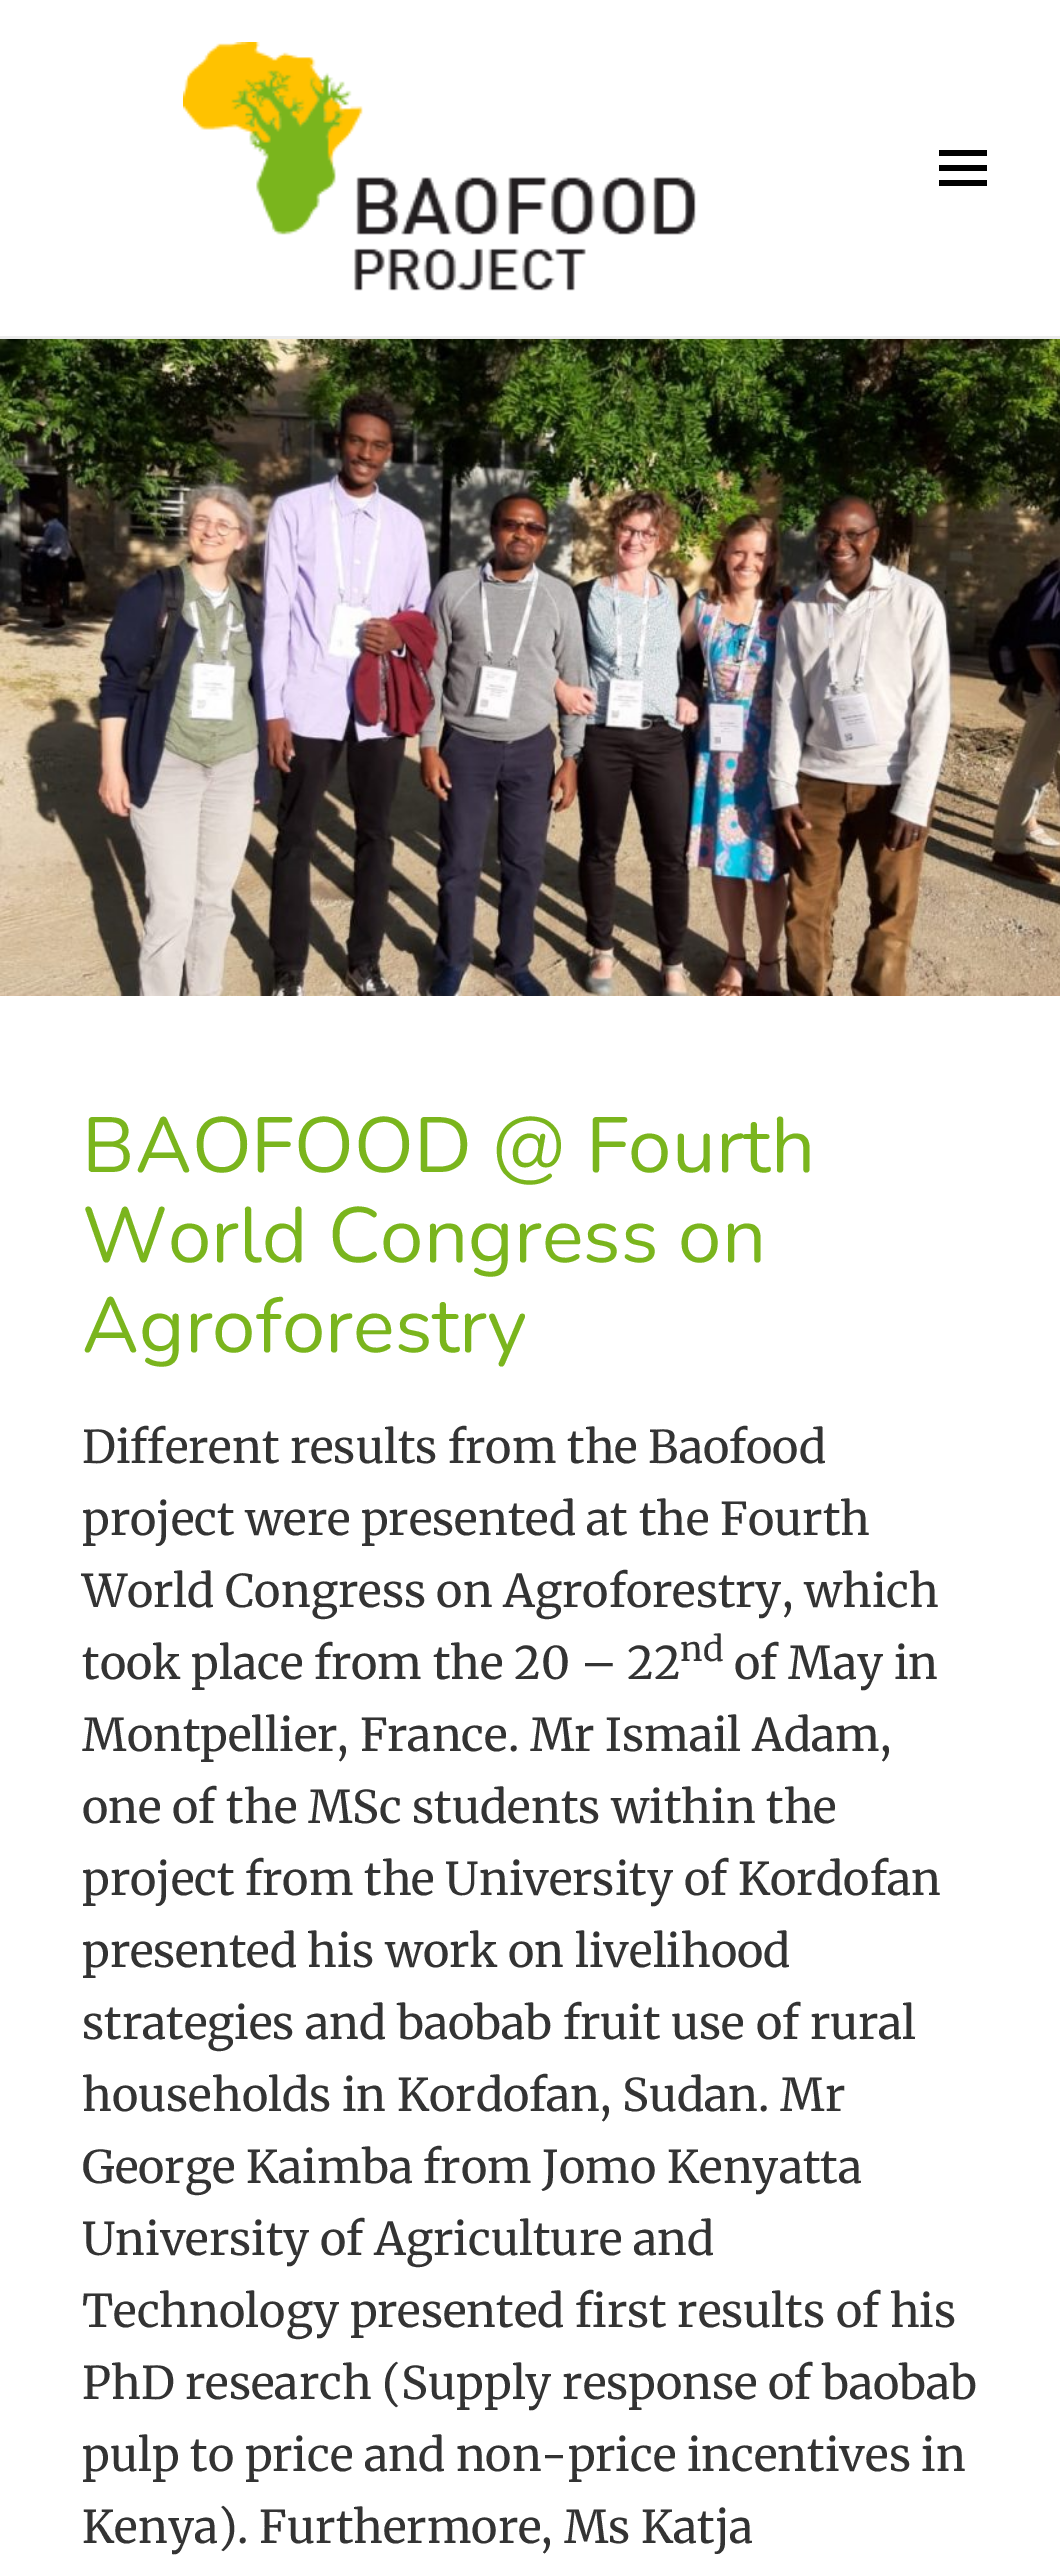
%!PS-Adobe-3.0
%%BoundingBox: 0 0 1060 2573
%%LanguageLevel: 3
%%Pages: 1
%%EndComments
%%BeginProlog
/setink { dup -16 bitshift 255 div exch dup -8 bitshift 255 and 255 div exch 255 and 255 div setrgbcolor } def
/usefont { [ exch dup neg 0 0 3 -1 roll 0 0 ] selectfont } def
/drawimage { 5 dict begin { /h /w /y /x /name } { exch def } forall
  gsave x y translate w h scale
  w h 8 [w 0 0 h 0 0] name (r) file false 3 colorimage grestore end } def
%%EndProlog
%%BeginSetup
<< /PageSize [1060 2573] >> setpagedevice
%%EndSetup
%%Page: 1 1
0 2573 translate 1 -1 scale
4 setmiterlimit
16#FFFFFF setink
0 0 1060 2573 rectfill
16#EBEBEB setink
0 336 1060 3 rectfill
(img1.raw) 183 42 513 249 drawimage
16#000000 setink
939 186 moveto 939 180 lineto 987 180 lineto 987 186 lineto closepath 939 150 moveto 987 150 lineto 987 156 lineto 939 156 lineto closepath 939 171 moveto 939 165 lineto 987 165 lineto 987 171 lineto closepath fill
(img2.raw) 0 339 1060 657 drawimage
/Nunito-Regular 78 usefont
16#7AB51D setink
[
    [(BAOFOOD @ Fourth) 82 1172]
    [(World Congress on) 82 1262]
    [(Agroforestry) 82 1352]
] { aload pop moveto show } forall
/Merriweather-Regular 45 usefont
16#333333 setink
[
    [(Different results from the Baofood) 82 1463]
    [(project were presented at the Fourth) 82 1535]
    [(World Congress on Agroforestry, which) 82 1607]
    [(took place from the 20 – 22) 82 1679]
] { aload pop moveto show } forall
/Merriweather-Regular 34 usefont
680 1661 moveto (nd) show
/Merriweather-Regular 45 usefont
[
    [(of May in) 734 1679]
    [(Montpellier, France. Mr Ismail Adam,) 82 1751]
    [(one of the MSc students within the) 82 1823]
    [(project from the University of Kordofan) 82 1895]
    [(presented his work on livelihood) 82 1967]
    [(strategies and baobab fruit use of rural) 82 2039]
    [(households in Kordofan, Sudan. Mr) 82 2111]
    [(George Kaimba from Jomo Kenyatta) 82 2183]
    [(University of Agriculture and) 82 2255]
    [(Technology presented first results of his) 82 2327]
    [(PhD research \(Supply response of baobab) 82 2399]
    [(pulp to price and non-price incentives in) 82 2471]
    [(Kenya\). Furthermore, Ms Katja) 82 2543]
] { aload pop moveto show } forall
showpage
%%EOF
